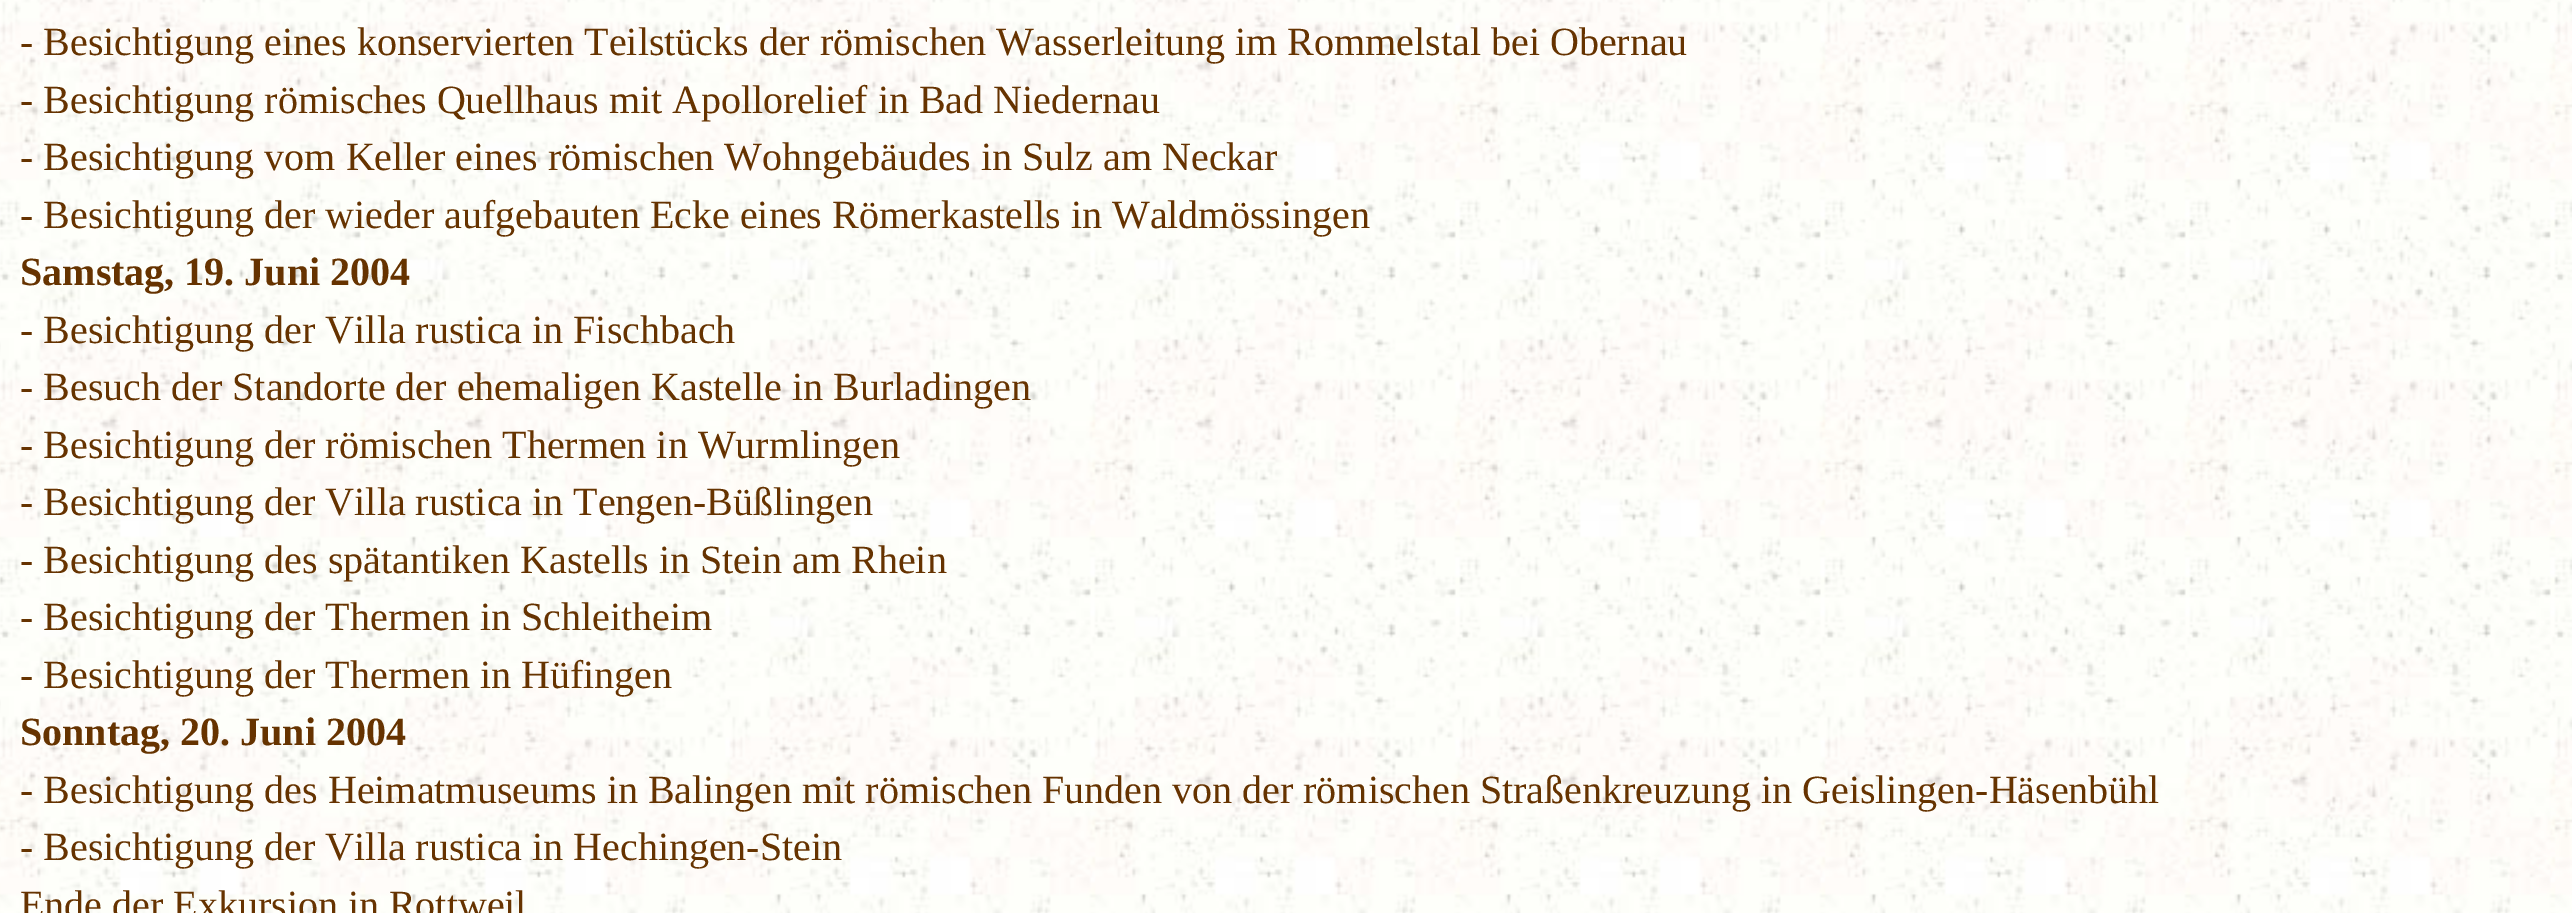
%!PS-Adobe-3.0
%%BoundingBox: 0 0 2572 913
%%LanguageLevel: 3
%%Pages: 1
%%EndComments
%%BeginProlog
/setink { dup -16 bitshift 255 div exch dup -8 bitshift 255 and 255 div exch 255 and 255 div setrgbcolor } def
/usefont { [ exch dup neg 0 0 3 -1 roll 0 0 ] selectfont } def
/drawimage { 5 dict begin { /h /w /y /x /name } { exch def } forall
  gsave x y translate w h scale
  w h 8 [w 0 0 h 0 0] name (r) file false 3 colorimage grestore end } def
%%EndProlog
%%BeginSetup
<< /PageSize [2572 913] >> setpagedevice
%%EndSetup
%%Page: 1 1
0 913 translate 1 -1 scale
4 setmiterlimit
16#FFFFFF setink
0 0 2572 913 rectfill
(img1.raw) 0 0 2572 913 drawimage
/LiberationSerif-Regular 40 usefont
16#663300 setink
[
    [(- Besichtigung eines konservierten Teilstücks der römischen Wasserleitung im Rommelstal bei Obernau) 20 55]
    [(- Besichtigung römisches Quellhaus mit Apollorelief in Bad Niedernau) 20 113]
    [(- Besichtigung vom Keller eines römischen Wohngebäudes in Sulz am Neckar) 20 170]
    [(- Besichtigung der wieder aufgebauten Ecke eines Römerkastells in Waldmössingen) 20 228]
] { aload pop moveto show } forall
/LiberationSerif-Bold 40 usefont
20 285 moveto (Samstag, 19. Juni 2004) show
/LiberationSerif-Regular 40 usefont
[
    [(- Besichtigung der Villa rustica in Fischbach) 20 343]
    [(- Besuch der Standorte der ehemaligen Kastelle in Burladingen) 20 400]
    [(- Besichtigung der römischen Thermen in Wurmlingen) 20 458]
    [(- Besichtigung der Villa rustica in Tengen-Büßlingen) 20 515]
    [(- Besichtigung des spätantiken Kastells in Stein am Rhein) 20 573]
    [(- Besichtigung der Thermen in Schleitheim) 20 630]
    [(- Besichtigung der Thermen in Hüfingen) 20 688]
] { aload pop moveto show } forall
/LiberationSerif-Bold 40 usefont
20 745 moveto (Sonntag, 20. Juni 2004) show
/LiberationSerif-Regular 40 usefont
[
    [(- Besichtigung des Heimatmuseums in Balingen mit römischen Funden von der römischen Straßenkreuzung in Geislingen-Häsenbühl) 20 803]
    [(- Besichtigung der Villa rustica in Hechingen-Stein) 20 860]
    [(Ende der Exkursion in Rottweil) 20 918]
] { aload pop moveto show } forall
showpage
%%EOF
